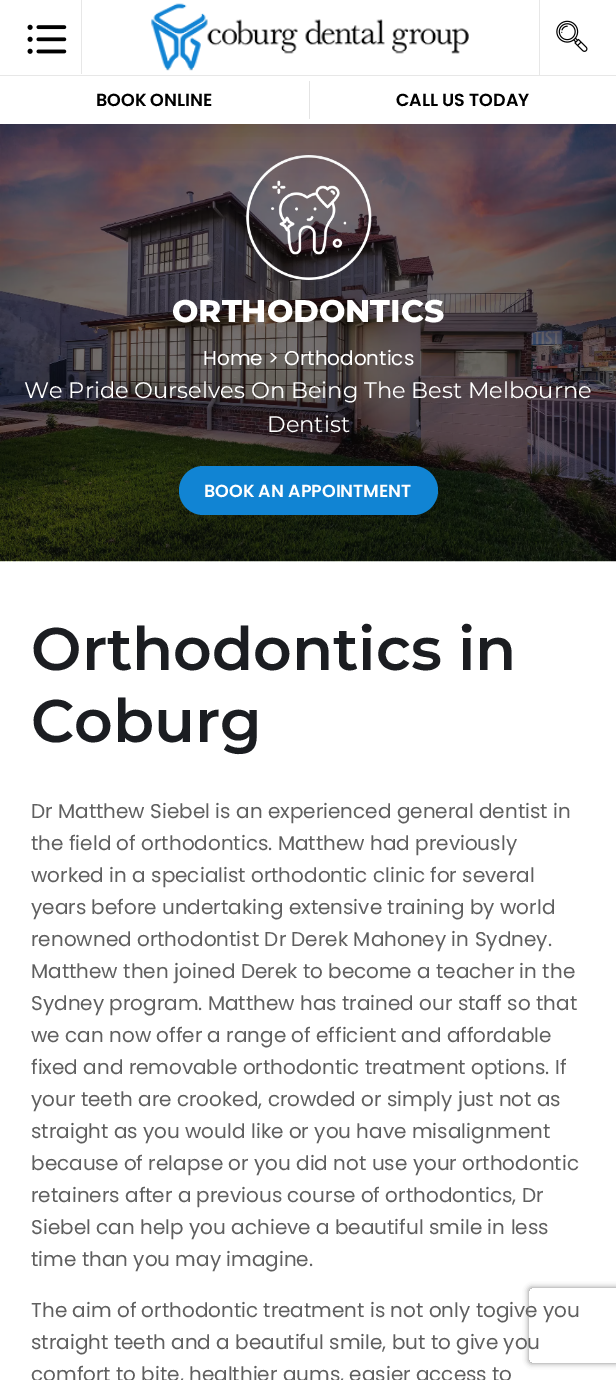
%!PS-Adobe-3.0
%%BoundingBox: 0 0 616 1380
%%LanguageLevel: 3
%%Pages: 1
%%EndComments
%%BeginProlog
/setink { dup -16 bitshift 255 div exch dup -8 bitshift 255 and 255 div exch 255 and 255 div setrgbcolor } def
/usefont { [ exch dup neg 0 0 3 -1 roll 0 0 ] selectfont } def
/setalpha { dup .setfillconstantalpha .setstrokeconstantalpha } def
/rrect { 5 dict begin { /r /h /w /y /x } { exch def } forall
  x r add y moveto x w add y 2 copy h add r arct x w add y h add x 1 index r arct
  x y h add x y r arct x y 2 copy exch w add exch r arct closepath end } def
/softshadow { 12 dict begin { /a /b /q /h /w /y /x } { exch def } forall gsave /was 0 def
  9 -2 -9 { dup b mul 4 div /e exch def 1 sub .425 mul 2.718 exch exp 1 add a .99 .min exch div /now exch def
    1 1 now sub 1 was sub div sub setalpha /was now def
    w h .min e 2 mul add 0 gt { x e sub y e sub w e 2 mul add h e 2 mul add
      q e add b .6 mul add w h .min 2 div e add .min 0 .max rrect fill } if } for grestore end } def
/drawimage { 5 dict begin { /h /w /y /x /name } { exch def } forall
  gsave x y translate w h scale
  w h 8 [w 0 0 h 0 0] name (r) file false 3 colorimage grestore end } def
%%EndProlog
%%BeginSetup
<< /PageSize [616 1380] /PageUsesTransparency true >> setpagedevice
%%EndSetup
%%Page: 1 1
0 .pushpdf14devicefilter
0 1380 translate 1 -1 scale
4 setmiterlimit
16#FFFFFF setink
0 0 616 1380 rectfill
(img4.raw) 0 124 616 438 drawimage
(img5.raw) 246 155 126 125 drawimage
16#2A4371 setink
3 3 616 123 0 9.5 0.15 softshadow
16#000000 setink
19 19 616 124 0 24 0.1 softshadow
16#FFFFFF setink
0 0 616 124 rectfill
16#E7E7E7 setink
81 0 1 74 rectfill
(img1.raw) 27 24 40 30 drawimage
(img2.raw) 151 3 318 68 drawimage
539 0 1 75 rectfill
(img3.raw) 556 20 32 32 drawimage
0 75 616 1 rectfill
/Poppins-SemiBold 17.5 usefont
16#000000 setink
96 106 moveto (BOOK ONLINE) show
16#E4E4E4 setink
309 81 1 38 rectfill
16#000000 setink
396 106 moveto (CALL US TODAY) show
/Montserrat-ExtraBold 31.25 usefont
16#FFFFFF setink
172 322 moveto (ORTHODONTICS) show
/Poppins-Regular 20 usefont
203 365 moveto (Home > Orthodontics) show
/Montserrat-Regular 22.5 usefont
24 398 moveto (We Pride Ourselves On Being The Best Melbourne) show
267 432 moveto (Dentist) show
16#1184D3 setink
179 466 259 49 24.5 rrect fill
/Poppins-SemiBold 17.5 usefont
16#FFFFFF setink
204 497 moveto (BOOK AN APPOINTMENT) show
/Montserrat-SemiBold 60 usefont
16#1B1D21 setink
31 670 moveto (Orthodontics in) show
31 742 moveto (Coburg) show
/Poppins-Regular 20 usefont
16#5F5F5F setink
[
    [(Dr Matthew Siebel is an experienced general dentist in) 31 818]
    [(the field of orthodontics. Matthew had previously) 31 850]
    [(worked in a specialist orthodontic clinic for several) 31 882]
    [(years before undertaking extensive training by world) 31 914]
    [(renowned orthodontist Dr Derek Mahoney in Sydney.) 31 946]
    [(Matthew then joined Derek to become a teacher in the) 31 978]
    [(Sydney program. Matthew has trained our staff so that) 31 1010]
    [(we can now offer a range of efficient and affordable) 31 1042]
    [(fixed and removable orthodontic treatment options. If) 31 1074]
    [(your teeth are crooked, crowded or simply just not as) 31 1106]
    [(straight as you would like or you have misalignment) 31 1138]
    [(because of relapse or you did not use your orthodontic) 31 1170]
    [(retainers after a previous course of orthodontics, Dr) 31 1202]
    [(Siebel can help you achieve a beautiful smile in less) 31 1234]
    [(time than you may imagine.) 31 1266]
    [(The aim of orthodontic treatment is not only togive you) 31 1317]
    [(straight teeth and a beautiful smile, but to give you) 31 1349]
    [(comfort to bite, healthier gums, easier access to) 31 1381]
] { aload pop moveto show } forall
gsave
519 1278 moveto 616 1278 lineto 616 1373 lineto 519 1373 lineto closepath 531.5 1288 moveto 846.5 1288 lineto 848 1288 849 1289 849 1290.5 curveto 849 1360.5 lineto 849 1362 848 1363 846.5 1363 curveto 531.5 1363 lineto 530 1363 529 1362 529 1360.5 curveto 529 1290.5 lineto 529 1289 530 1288 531.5 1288 curveto closepath eoclip newpath
16#808080 setink
529 1288 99 75 2.5 3 1 softshadow
grestore
.poppdf14devicefilter showpage
%%EOF
